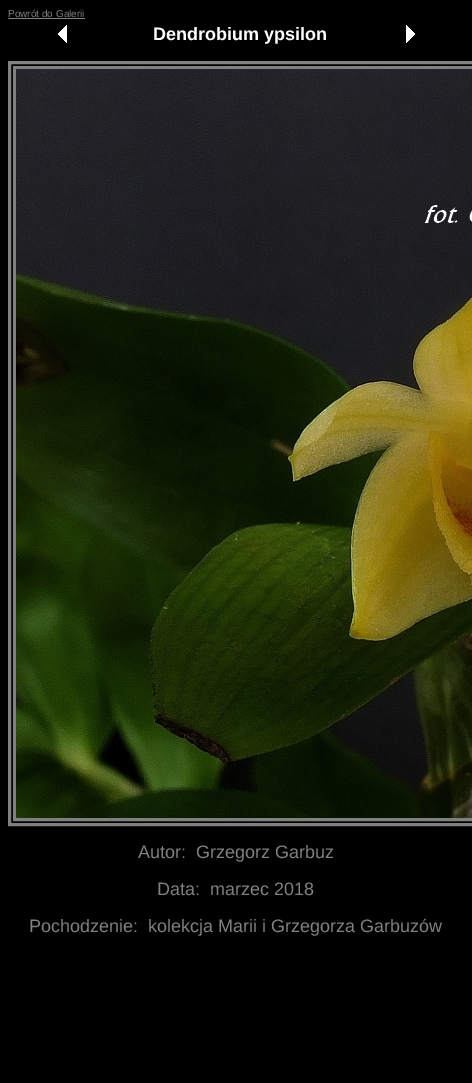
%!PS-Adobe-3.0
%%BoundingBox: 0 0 472 1083
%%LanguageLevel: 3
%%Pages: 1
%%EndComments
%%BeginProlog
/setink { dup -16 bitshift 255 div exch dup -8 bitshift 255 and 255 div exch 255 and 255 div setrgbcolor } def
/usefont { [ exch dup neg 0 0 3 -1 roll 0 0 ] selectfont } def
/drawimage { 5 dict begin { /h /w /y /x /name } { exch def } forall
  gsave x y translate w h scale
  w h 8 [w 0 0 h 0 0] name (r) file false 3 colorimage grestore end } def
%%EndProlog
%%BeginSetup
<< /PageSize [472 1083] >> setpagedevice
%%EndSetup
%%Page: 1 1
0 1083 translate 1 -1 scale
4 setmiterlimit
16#000000 setink
0 0 472 1083 rectfill
/LiberationSans-Regular 10 usefont
16#808080 setink
8 17 moveto (Powrót do Galerii) show
8 18 77 1 rectfill
(img1.raw) 58 25 9 18 drawimage
/LiberationSans-Bold 18 usefont
16#FFFFFF setink
153 40 moveto (Dendrobium ypsilon) show
(img2.raw) 406 25 9 18 drawimage
16#808080 setink
3 setlinewidth
9.5 62.5 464 762 rectstroke
14.5 67.5 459 752 rectstroke
(img3.raw) 16 69 456 749 drawimage
/LiberationSans-Regular 18 usefont
[
    [(Autor:  Grzegorz Garbuz) 138 858]
    [(Data:  marzec 2018) 157 895]
    [(Pochodzenie:  kolekcja Marii i Grzegorza Garbuzów) 29 932]
] { aload pop moveto show } forall
showpage
%%EOF
